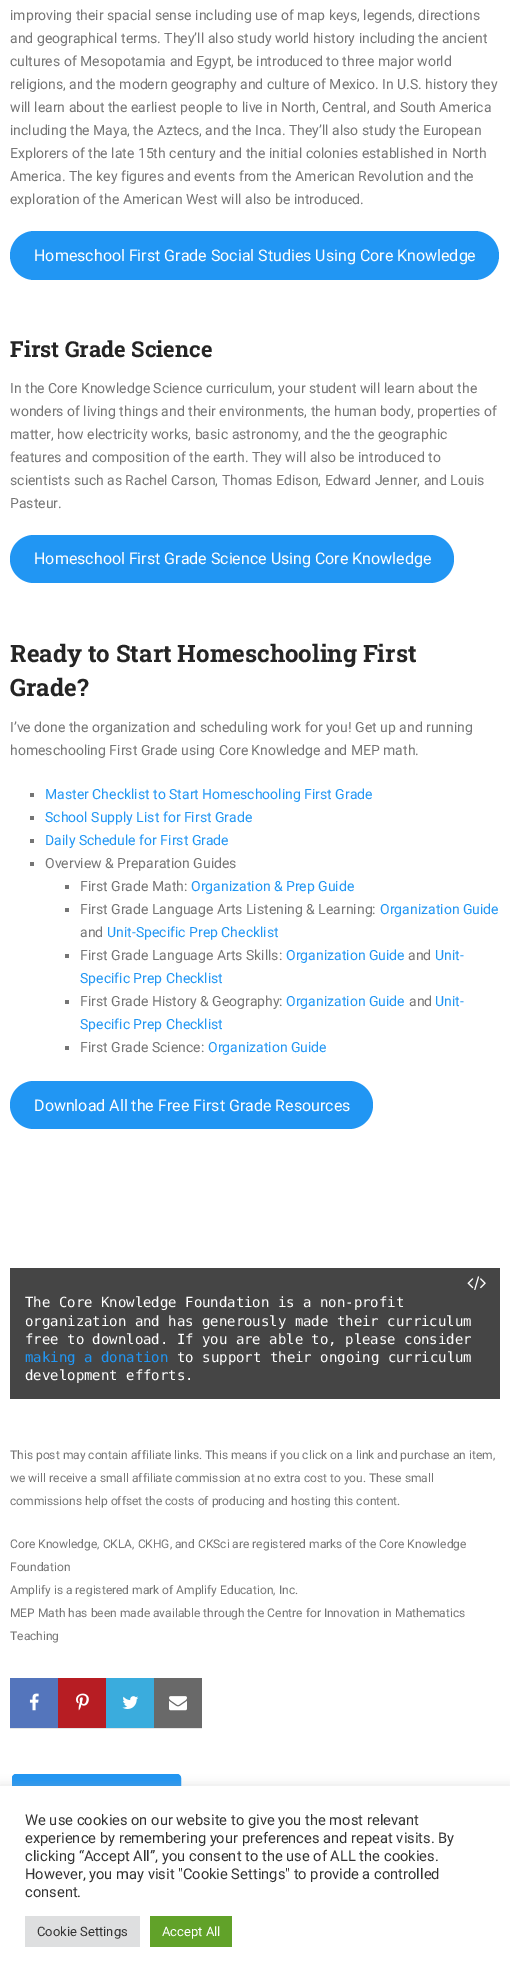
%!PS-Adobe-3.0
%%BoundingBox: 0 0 510 1977
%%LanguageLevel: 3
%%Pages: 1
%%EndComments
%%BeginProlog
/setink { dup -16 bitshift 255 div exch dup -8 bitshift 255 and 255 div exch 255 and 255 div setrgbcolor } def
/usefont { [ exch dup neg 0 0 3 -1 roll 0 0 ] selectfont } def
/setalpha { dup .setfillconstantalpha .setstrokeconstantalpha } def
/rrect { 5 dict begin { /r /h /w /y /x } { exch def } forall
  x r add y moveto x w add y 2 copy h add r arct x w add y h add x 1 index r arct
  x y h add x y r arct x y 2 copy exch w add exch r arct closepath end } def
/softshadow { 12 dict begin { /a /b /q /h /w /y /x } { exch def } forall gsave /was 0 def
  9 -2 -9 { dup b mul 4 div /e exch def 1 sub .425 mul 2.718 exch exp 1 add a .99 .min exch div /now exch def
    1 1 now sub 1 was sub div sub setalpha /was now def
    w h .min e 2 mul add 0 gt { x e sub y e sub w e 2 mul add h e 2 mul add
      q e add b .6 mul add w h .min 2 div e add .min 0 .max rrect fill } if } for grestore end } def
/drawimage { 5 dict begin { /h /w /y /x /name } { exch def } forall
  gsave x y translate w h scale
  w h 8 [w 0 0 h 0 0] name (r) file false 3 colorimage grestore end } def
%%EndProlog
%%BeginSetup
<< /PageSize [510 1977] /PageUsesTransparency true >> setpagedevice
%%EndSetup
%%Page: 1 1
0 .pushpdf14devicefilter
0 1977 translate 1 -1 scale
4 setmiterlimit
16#FFFFFF setink
0 0 510 1977 rectfill
16#E6E6E6 setink
10 1728 192 1 rectfill
/Roboto-Regular 14 usefont
16#757575 setink
[
    [(improving their spacial sense including use of map keys, legends, directions) 10 20]
    [(and geographical terms. They’ll also study world history including the ancient) 10 43]
    [(cultures of Mesopotamia and Egypt, be introduced to three major world) 10 66]
    [(religions, and the modern geography and culture of Mexico. In U.S. history they) 10 89]
    [(will learn about the earliest people to live in North, Central, and South America) 10 112]
    [(including the Maya, the Aztecs, and the Inca. They’ll also study the European) 10 135]
    [(Explorers of the late 15th century and the initial colonies established in North) 10 158]
    [(America. The key figures and events from the American Revolution and the) 10 181]
    [(exploration of the American West will also be introduced.) 10 204]
] { aload pop moveto show } forall
16#2196F3 setink
10 231 489 49 24.5 rrect fill
/Roboto-Regular 16 usefont
16#FFFFFF setink
34 261 moveto (Homeschool First Grade Social Studies Using Core Knowledge) show
/RobotoSlab-Bold 22 usefont
16#252525 setink
10 357 moveto (First Grade Science) show
/Roboto-Regular 14 usefont
16#757575 setink
[
    [(In the Core Knowledge Science curriculum, your student will learn about the) 10 393]
    [(wonders of living things and their environments, the human body, properties of) 10 416]
    [(matter, how electricity works, basic astronomy, and the the geographic) 10 439]
    [(features and composition of the earth. They will also be introduced to) 10 462]
    [(scientists such as Rachel Carson, Thomas Edison, Edward Jenner, and Louis) 10 485]
    [(Pasteur.) 10 508]
] { aload pop moveto show } forall
16#2196F3 setink
10 535 444 48 24 rrect fill
/Roboto-Regular 16 usefont
16#FFFFFF setink
34 564 moveto (Homeschool First Grade Science Using Core Knowledge) show
/RobotoSlab-Bold 24 usefont
16#252525 setink
10 662 moveto (Ready to Start Homeschooling First) show
10 696 moveto (Grade?) show
/Roboto-Regular 14 usefont
16#757575 setink
10 732 moveto (I’ve done the organization and scheduling work for you! Get up and running) show
10 755 moveto (homeschooling First Grade using Core Knowledge and MEP math.) show
30 793 4 4 rectfill
16#2196F3 setink
45 799 moveto (Master Checklist to Start Homeschooling First Grade) show
16#757575 setink
30 816 4 4 rectfill
16#2196F3 setink
45 822 moveto (School Supply List for First Grade) show
16#757575 setink
30 839 4 4 rectfill
16#2196F3 setink
45 845 moveto (Daily Schedule for First Grade) show
16#757575 setink
30 862 4 4 rectfill
45 868 moveto (Overview & Preparation Guides) show
65 885 4 4 rectfill
80 891 moveto (First Grade Math:) show
16#2196F3 setink
191 891 moveto (Organization & Prep Guide) show
16#757575 setink
65 908 4 4 rectfill
80 914 moveto (First Grade Language Arts Listening & Learning:) show
16#2196F3 setink
380 914 moveto (Organization Guide) show
16#757575 setink
80 937 moveto (and) show
16#2196F3 setink
107 937 moveto (Unit-Specific Prep Checklist) show
16#757575 setink
65 954 4 4 rectfill
80 960 moveto (First Grade Language Arts Skills:) show
16#2196F3 setink
286 960 moveto (Organization Guide) show
16#757575 setink
408 960 moveto (and) show
16#2196F3 setink
435 960 moveto (Unit-) show
80 983 moveto (Specific Prep Checklist) show
16#757575 setink
65 1000 4 4 rectfill
80 1006 moveto (First Grade History & Geography:) show
16#2196F3 setink
286 1006 moveto (Organization Guide) show
16#757575 setink
409 1006 moveto (and) show
16#2196F3 setink
435 1006 moveto (Unit-) show
80 1029 moveto (Specific Prep Checklist) show
16#757575 setink
65 1046 4 4 rectfill
80 1052 moveto (First Grade Science:) show
16#2196F3 setink
208 1052 moveto (Organization Guide) show
10 1081 363 48 24 rrect fill
/Roboto-Regular 16 usefont
16#FFFFFF setink
34 1111 moveto (Download All the Free First Grade Resources) show
16#454545 setink
10 1268 490 131 rectfill
(img1.raw) 467 1276 19 14 drawimage
/DejaVuSansMono-Regular 14 usefont
16#FFFFFF setink
[
    [(The Core Knowledge Foundation is a non-profit) 25 1307]
    [(organization and has generously made their curriculum) 25 1326]
    [(free to download. If you are able to, please consider) 25 1344]
] { aload pop moveto show } forall
16#2196F3 setink
25 1362 moveto (making a donation) show
16#FFFFFF setink
177 1362 moveto (to support their ongoing curriculum) show
25 1380 moveto (development efforts.) show
/Roboto-Regular 12 usefont
16#757575 setink
[
    [(This post may contain affiliate links. This means if you click on a link and purchase an item,) 10 1459]
    [(we will receive a small affiliate commission at no extra cost to you. These small) 10 1482]
    [(commissions help offset the costs of producing and hosting this content.) 10 1505]
    [(Core Knowledge, CKLA, CKHG, and CKSci are registered marks of the Core Knowledge) 10 1548]
    [(Foundation) 10 1571]
    [(Amplify is a registered mark of Amplify Education, Inc.) 10 1594]
    [(MEP Math has been made available through the Centre for Innovation in Mathematics) 10 1617]
    [(Teaching) 10 1640]
] { aload pop moveto show } forall
16#5475BC setink
10 1678 48 50 rectfill
(img2.raw) 29 1693 10 18 drawimage
16#B71D23 setink
58 1678 48 50 rectfill
(img3.raw) 76 1693 13 18 drawimage
16#3AACDD setink
106 1678 48 50 rectfill
(img4.raw) 122 1696 17 13 drawimage
16#696969 setink
154 1678 48 50 rectfill
(img5.raw) 169 1696 18 15 drawimage
16#2196F3 setink
12.5 1774.5 168 36 3.5 rrect gsave fill grestore
stroke
16#ACABAB setink
0 1785 510 191 0 5 0.3 softshadow
16#FFFFFF setink
0 1786 510 191 rectfill
/Roboto-Regular 14.7 usefont
16#333333 setink
[
    [(We use cookies on our website to give you the most relevant) 25 1825]
    [(experience by remembering your preferences and repeat visits. By) 25 1843]
    [(clicking “Accept All”, you consent to the use of ALL the cookies.) 25 1861]
    [(However, you may visit "Cookie Settings" to provide a controlled) 25 1879]
    [(consent.) 25 1897]
] { aload pop moveto show } forall
16#DEDFE0 setink
25 1916 115 31 rectfill
/Roboto-Regular 13 usefont
16#333333 setink
37 1936 moveto (Cookie Settings) show
16#61A229 setink
150 1916 82 31 rectfill
16#FFFFFF setink
162 1936 moveto (Accept All) show
.poppdf14devicefilter showpage
%%EOF
